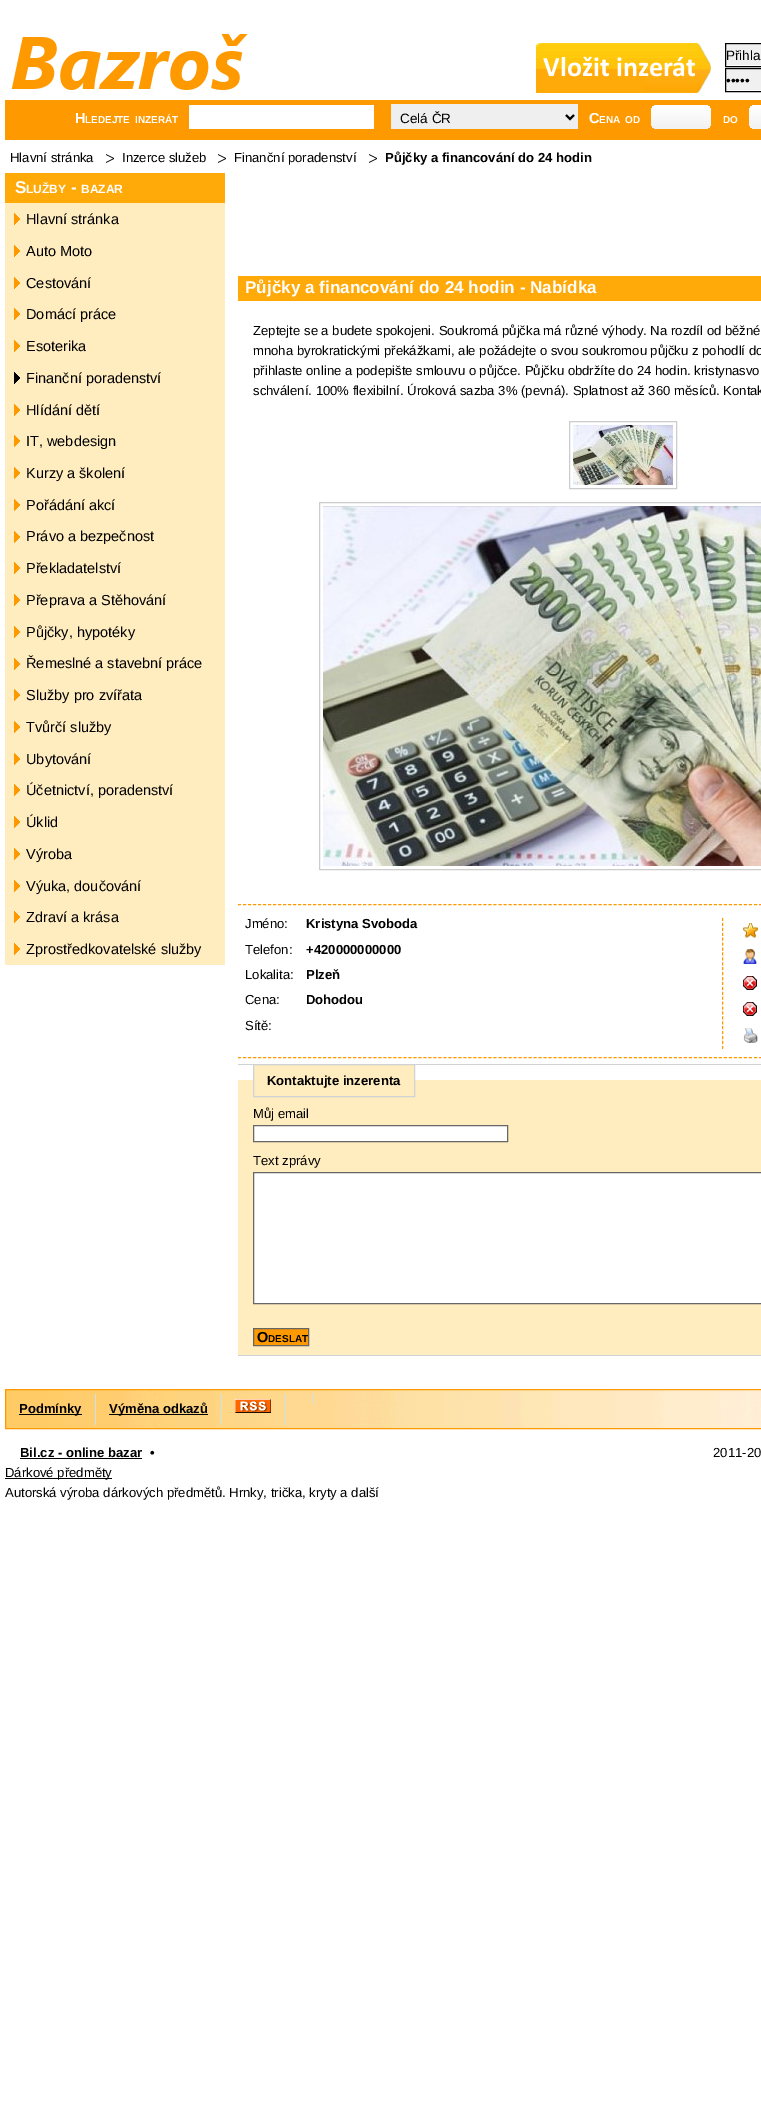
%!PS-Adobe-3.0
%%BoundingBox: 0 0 761 2104
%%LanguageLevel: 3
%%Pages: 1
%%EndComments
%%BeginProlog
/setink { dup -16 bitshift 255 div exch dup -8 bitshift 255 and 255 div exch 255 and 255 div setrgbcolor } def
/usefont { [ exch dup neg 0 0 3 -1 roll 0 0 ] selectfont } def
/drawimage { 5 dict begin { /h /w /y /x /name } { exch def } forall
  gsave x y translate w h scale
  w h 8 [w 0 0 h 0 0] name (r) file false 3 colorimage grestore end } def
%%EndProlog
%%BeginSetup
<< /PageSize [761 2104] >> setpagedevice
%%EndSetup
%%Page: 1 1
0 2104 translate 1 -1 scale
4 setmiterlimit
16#FFFFFF setink
0 0 761 2104 rectfill
(img1.raw) 10 34 238 56 drawimage
(img2.raw) 536 43 176 50 drawimage
16#F0F0F0 setink
726 45 35 20 rectfill
16#000000 setink
725.5 43.5 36 23 rectstroke
/LiberationSans-Regular 13.5 usefont
726 60 moveto (Přihla) show
16#F0F0F0 setink
726 70 35 20 rectfill
16#000000 setink
725.5 68.5 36 23 rectstroke
726 85 moveto (•••••) show
16#FF9900 setink
5 100 756 40 rectfill
/LiberationSans-Bold 14.5 usefont
16#FFFFFF setink
75 123 moveto (H) show
/LiberationSans-Bold 10 usefont
85 123 moveto (LEDEJTE) show
135 123 moveto (INZERÁT) show
189 105 185 24 rectfill
16#EFEFEF setink
391 104 187 25 rectfill
16#000000 setink
2 setlinewidth
566 115 moveto 570 119 lineto 574 115 lineto stroke
/LiberationSans-Regular 13.5 usefont
400 123 moveto (Celá ČR) show
/LiberationSans-Bold 14.5 usefont
16#FFFFFF setink
589 123 moveto (C) show
/LiberationSans-Bold 10 usefont
599 123 moveto (ENA) show
625 123 moveto (OD) show
(img3.raw) 651 105 60 24 drawimage
723 123 moveto (DO) show
(img4.raw) 749 105 12 24 drawimage
/LiberationSans-Regular 13.1 usefont
16#000000 setink
10 162 moveto (Hlavní stránka) show
(img5.raw) 106 154 8 9 drawimage
122 162 moveto (Inzerce služeb) show
(img5.raw) 218 154 8 9 drawimage
234 162 moveto (Finanční poradenství) show
(img5.raw) 369 154 8 9 drawimage
/LiberationSans-Bold 13.1 usefont
385 162 moveto (Půjčky a financování do 24 hodin) show
16#FFAA09 setink
5 173 220 30 rectfill
/LiberationSans-Bold 17.1 usefont
16#FFFFFF setink
15 193 moveto (S) show
/LiberationSans-Bold 12 usefont
26 193 moveto (LUŽBY) show
/LiberationSans-Bold 17.1 usefont
71 193 moveto (-) show
/LiberationSans-Bold 12 usefont
81 193 moveto (BAZAR) show
16#FFECBF setink
5 203 220 762 rectfill
(img6.raw) 14 213 6 12 drawimage
/LiberationSans-Regular 14.5 usefont
16#000000 setink
26 224 moveto (Hlavní stránka) show
(img6.raw) 14 245 6 12 drawimage
26 256 moveto (Auto Moto) show
(img6.raw) 14 277 6 12 drawimage
26 288 moveto (Cestování) show
(img6.raw) 14 308 6 12 drawimage
26 319 moveto (Domácí práce) show
(img6.raw) 14 340 6 12 drawimage
26 351 moveto (Esoterika) show
(img7.raw) 14 372 6 12 drawimage
26 383 moveto (Finanční poradenství) show
(img6.raw) 14 404 6 12 drawimage
26 415 moveto (Hlídání dětí) show
(img6.raw) 14 435 6 12 drawimage
26 446 moveto (IT, webdesign) show
(img6.raw) 14 467 6 12 drawimage
26 478 moveto (Kurzy a školení) show
(img6.raw) 14 499 6 12 drawimage
26 510 moveto (Pořádání akcí) show
(img6.raw) 14 531 6 12 drawimage
26 541 moveto (Právo a bezpečnost) show
(img6.raw) 14 562 6 12 drawimage
26 573 moveto (Překladatelství) show
(img6.raw) 14 594 6 12 drawimage
26 605 moveto (Přeprava a Stěhování) show
(img6.raw) 14 626 6 12 drawimage
26 637 moveto (Půjčky, hypotéky) show
(img6.raw) 14 658 6 12 drawimage
26 668 moveto (Řemeslné a stavební práce) show
(img6.raw) 14 689 6 12 drawimage
26 700 moveto (Služby pro zvířata) show
(img6.raw) 14 721 6 12 drawimage
26 732 moveto (Tvůrčí služby) show
(img6.raw) 14 753 6 12 drawimage
26 764 moveto (Ubytování) show
(img6.raw) 14 784 6 12 drawimage
26 795 moveto (Účetnictví, poradenství) show
(img6.raw) 14 816 6 12 drawimage
26 827 moveto (Úklid) show
(img6.raw) 14 848 6 12 drawimage
26 859 moveto (Výroba) show
(img6.raw) 14 880 6 12 drawimage
26 891 moveto (Výuka, doučování) show
(img6.raw) 14 911 6 12 drawimage
26 922 moveto (Zdraví a krása) show
(img6.raw) 14 943 6 12 drawimage
26 954 moveto (Zprostředkovatelské služby) show
16#FFAA09 setink
238 276 523 25 rectfill
/LiberationSans-Bold 17.1 usefont
16#FFFFFF setink
245 293 moveto (Půjčky a financování do 24 hodin - Nabídka) show
/LiberationSans-Regular 13.1 usefont
16#000000 setink
[
    [(Zeptejte se a budete spokojeni. Soukromá půjčka má různé výhody. Na rozdíl od běžné) 253 335]
    [(mnoha byrokratickými překážkami, ale požádejte o svou soukromou půjčku z pohodlí do) 253 355]
    [(přihlaste online a podepište smlouvu o půjčce. Půjčku obdržíte do 24 hodin. kristynasvo) 253 375]
    [(schválení. 100% flexibilní. Úroková sazba 3% \(pevná\). Splatnost až 360 měsíců. Kontak) 253 395]
] { aload pop moveto show } forall
16#CCCCCC setink
1 setlinewidth
569.5 421.5 107 67 rectstroke
(img8.raw) 573 425 100 60 drawimage
319.5 502.5 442 367 rectstroke
(img9.raw) 323 506 438 360 drawimage
16#FF9900 setink
[3 2.01] 0 setdash
238 904.5 moveto 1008 904.5 lineto stroke
16#000000 setink
245 928 moveto (Jméno:) show
/LiberationSans-Bold 13.1 usefont
306 928 moveto (Kristyna Svoboda) show
/LiberationSans-Regular 13.1 usefont
245 954 moveto (Telefon:) show
/LiberationSans-Bold 13.1 usefont
306 954 moveto (+420000000000) show
/LiberationSans-Regular 13.1 usefont
245 979 moveto (Lokalita:) show
/LiberationSans-Bold 13.1 usefont
306 979 moveto (Plzeň) show
/LiberationSans-Regular 13.1 usefont
245 1004 moveto (Cena:) show
/LiberationSans-Bold 13.1 usefont
306 1004 moveto (Dohodou) show
/LiberationSans-Regular 13.1 usefont
245 1030 moveto (Sítě:) show
16#FF9900 setink
[3 1.92] 0 setdash
722.5 918 moveto 722.5 1049 lineto stroke
(img10.raw) 743 923 15 15 drawimage
(img11.raw) 743 949 14 15 drawimage
(img12.raw) 743 976 14 14 drawimage
(img12.raw) 743 1002 14 14 drawimage
(img13.raw) 743 1028 15 15 drawimage
[3 2.01] 0 setdash
238 1057.5 moveto 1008 1057.5 lineto stroke
[
    [238 1080 523 275 16#FFECBF]
    [238 1064 523 1 16#CFD3D6]
    [238 1355 523 1 16#CFD3D6]
    [254 1065 160 15 16#FFECBF]
] { aload pop setink rectfill } forall
16#CFD3D6 setink
[] 0 setdash
253.5 1064.5 161 32 rectstroke
/LiberationSans-Bold 13.1 usefont
16#000000 setink
267 1085 moveto (Kontaktujte inzerenta) show
/LiberationSans-Regular 13.1 usefont
253 1118 moveto (Můj email) show
16#FFFFFF setink
253.5 1125.5 moveto 507.5 1125.5 lineto 507.5 1141.5 lineto 253.5 1141.5 lineto closepath gsave fill grestore
16#676767 setink
stroke
16#000000 setink
253 1165 moveto (Text zprávy) show
16#FFFFFF setink
253.5 1172.5 moveto 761.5 1172.5 lineto 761.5 1303.5 lineto 253.5 1303.5 lineto closepath gsave fill grestore
16#676767 setink
stroke
16#FF9900 setink
253.5 1328.5 moveto 308.5 1328.5 lineto 308.5 1345.5 lineto 253.5 1345.5 lineto closepath gsave fill grestore
16#666666 setink
stroke
/LiberationSans-Bold 14.5 usefont
16#000000 setink
257 1342 moveto (O) show
/LiberationSans-Bold 10 usefont
268 1342 moveto (DESLAT) show
(img14.raw) 6 1390 755 38 drawimage
16#FF9900 setink
5.5 1389.5 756 39 rectstroke
16#C9E2F2 setink
221 1394 1 31 rectfill
(img15.raw) 235 1399 36 14 drawimage
[
    [284 1394 1 31 16#C9E2F2]
    [312 1394 1 10 16#C9E2F2]
    [19 1414 63 1 16#000000]
] { aload pop setink rectfill } forall
/LiberationSans-Bold 13.1 usefont
19 1413 moveto (Podmínky) show
16#C9E2F2 setink
95 1394 1 31 rectfill
16#000000 setink
109 1414 99 1 rectfill
109 1413 moveto (Výměna odkazů) show
20 1457 moveto (Bil.cz - online bazar) show
20 1458 122 1 rectfill
150 1457 moveto (•) show
/LiberationSans-Regular 13.1 usefont
713 1457 moveto (2011-20) show
5 1478 107 1 rectfill
5 1477 moveto (Dárkové předměty) show
5 1497 moveto (Autorská výroba dárkových předmětů. Hrnky, trička, kryty a další) show
showpage
%%EOF
